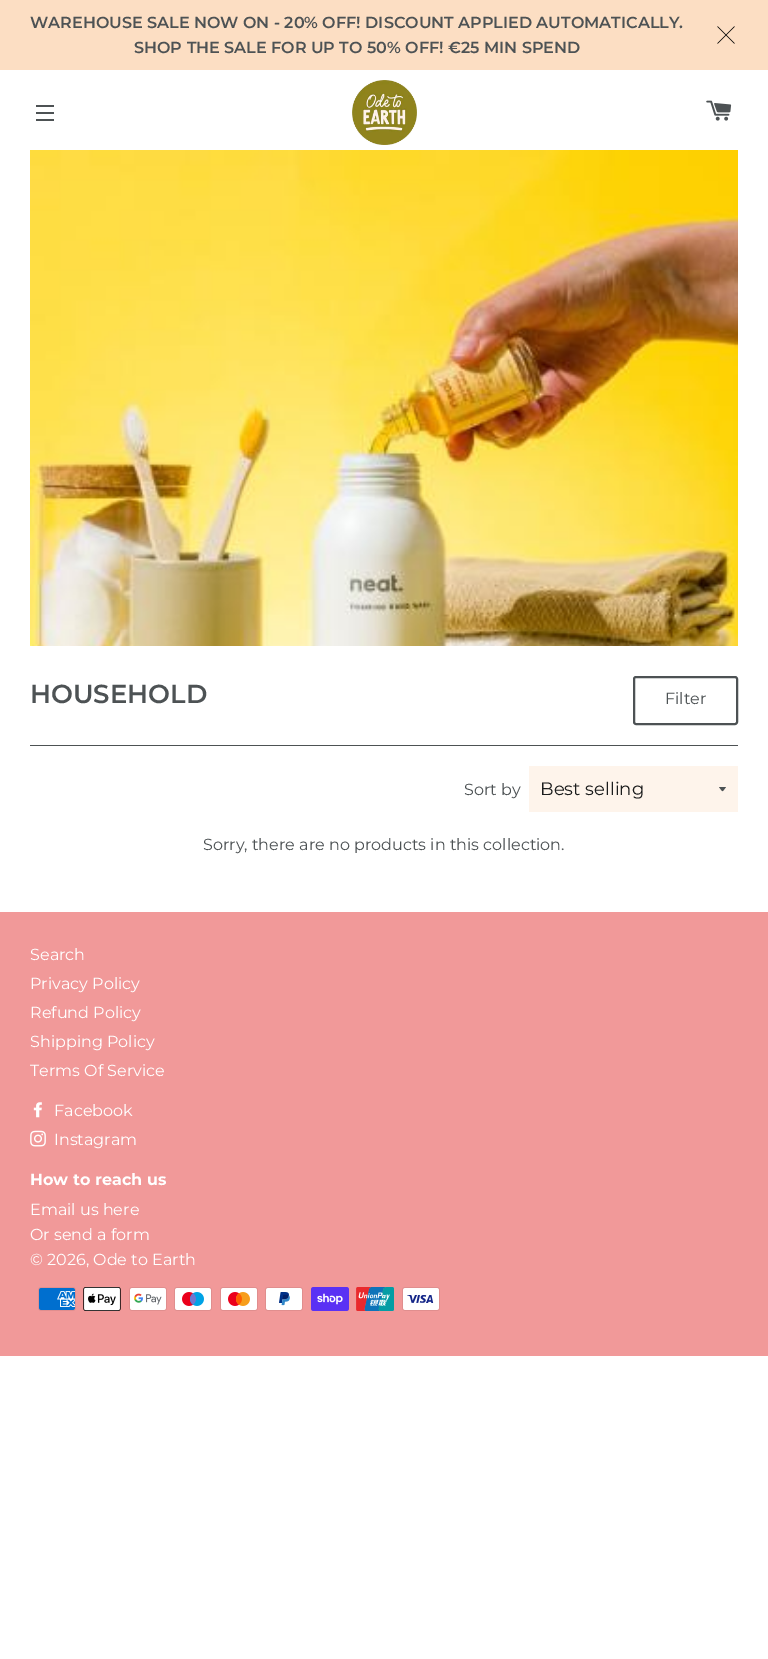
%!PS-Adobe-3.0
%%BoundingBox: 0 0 768 1659
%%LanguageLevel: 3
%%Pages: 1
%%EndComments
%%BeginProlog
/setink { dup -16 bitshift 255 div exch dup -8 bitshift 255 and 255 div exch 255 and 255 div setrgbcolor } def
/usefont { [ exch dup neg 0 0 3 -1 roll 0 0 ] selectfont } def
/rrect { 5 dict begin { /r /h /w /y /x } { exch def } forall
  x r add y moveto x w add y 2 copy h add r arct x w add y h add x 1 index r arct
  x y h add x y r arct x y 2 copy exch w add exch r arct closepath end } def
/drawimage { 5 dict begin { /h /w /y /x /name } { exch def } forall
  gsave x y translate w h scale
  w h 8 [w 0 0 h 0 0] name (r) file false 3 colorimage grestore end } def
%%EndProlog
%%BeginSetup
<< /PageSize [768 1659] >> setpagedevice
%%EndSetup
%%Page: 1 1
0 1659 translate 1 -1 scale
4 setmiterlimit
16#FFFFFF setink
0 0 768 1659 rectfill
16#FCDEC3 setink
0 0 768 70 rectfill
/Montserrat-SemiBold 16 usefont
16#4D5254 setink
30 28 moveto (WAREHOUSE SALE NOW ON - 20% OFF! DISCOUNT APPLIED AUTOMATICALLY.) show
134 53 moveto (SHOP THE SALE FOR UP TO 50% OFF! €25 MIN SPEND) show
(img1.raw) 717 26 18 18 drawimage
[
    [36 105 18 2 16#4D5254]
    [36 112 18 2 16#4D5254]
    [36 119 18 2 16#4D5254]
] { aload pop setink rectfill } forall
(img2.raw) 352 80 65 65 drawimage
(img3.raw) 706 100 26 21 drawimage
(img4.raw) 30 150 708 496 drawimage
/Montserrat-SemiBold 26 usefont
30 703 moveto (HOUSEHOLD) show
2 setlinewidth
634 677 103 47 2 rrect stroke
/Montserrat-Regular 16 usefont
665 704 moveto (Filter) show
30 745 708 1 rectfill
464 795 moveto (Sort by) show
16#FEF4EB setink
529 766 209 46 rectfill
16#4D5254 setink
719 787 moveto 723.5 792.5 721.5 792.5 726 787 curveto closepath fill
/Montserrat-Regular 18 usefont
16#1C1D1D setink
540 795 moveto (Best selling) show
/Montserrat-Regular 16 usefont
16#4D5254 setink
203 850 moveto (Sorry, there are no products in this collection.) show
16#F19999 setink
0 912 768 444 rectfill
16#FFFFFF setink
[
    [(Search) 30 960]
    [(Privacy Policy) 30 989]
    [(Refund Policy) 30 1018]
    [(Shipping Policy) 30 1047]
    [(Terms Of Service) 30 1076]
] { aload pop moveto show } forall
(img5.raw) 33 1102 9 16 drawimage
54 1116 moveto (Facebook) show
(img6.raw) 30 1130 16 17 drawimage
54 1145 moveto (Instagram) show
/Montserrat-Bold 16 usefont
30 1185 moveto (How to reach us) show
/Montserrat-Regular 16 usefont
[
    [(Email us here) 30 1215]
    [(Or send a form) 30 1240]
    [(© 2026, Ode to Earth) 30 1265]
] { aload pop moveto show } forall
(img7.raw) 38 1287 38 24 drawimage
(img8.raw) 83 1287 38 24 drawimage
(img9.raw) 129 1287 38 24 drawimage
(img10.raw) 174 1287 38 24 drawimage
(img11.raw) 220 1287 38 24 drawimage
(img12.raw) 265 1287 38 24 drawimage
(img13.raw) 311 1287 38 24 drawimage
(img14.raw) 356 1287 38 24 drawimage
(img15.raw) 402 1287 38 24 drawimage
showpage
%%EOF
